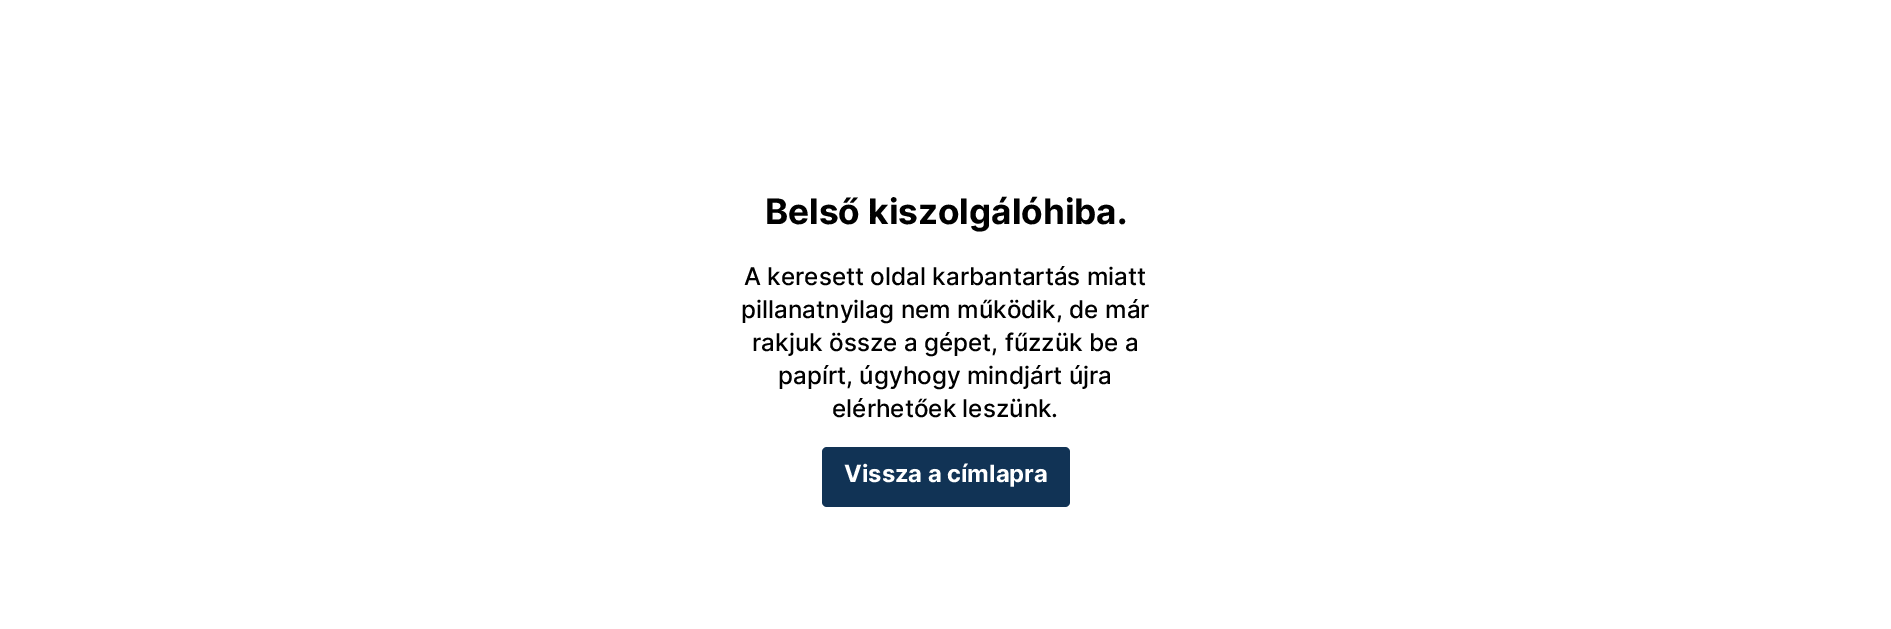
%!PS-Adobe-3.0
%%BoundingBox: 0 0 1891 629
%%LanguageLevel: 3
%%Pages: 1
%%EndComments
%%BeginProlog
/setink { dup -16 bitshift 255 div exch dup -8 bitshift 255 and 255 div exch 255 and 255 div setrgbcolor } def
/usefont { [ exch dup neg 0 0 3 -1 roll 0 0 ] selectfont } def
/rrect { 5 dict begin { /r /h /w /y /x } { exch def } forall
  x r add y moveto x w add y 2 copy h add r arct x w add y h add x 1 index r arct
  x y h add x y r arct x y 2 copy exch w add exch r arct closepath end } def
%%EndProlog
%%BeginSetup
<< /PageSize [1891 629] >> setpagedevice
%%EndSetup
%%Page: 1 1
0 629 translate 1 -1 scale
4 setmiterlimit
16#FFFFFF setink
0 0 1891 629 rectfill
/Inter-Bold 35.1 usefont
16#000000 setink
765 224 moveto (Belső kiszolgálóhiba.) show
/Inter-Medium 24.25 usefont
[
    [(A keresett oldal karbantartás miatt) 744 285]
    [(pillanatnyilag nem működik, de már) 741 318]
    [(rakjuk össze a gépet, fűzzük be a) 752 351]
    [(papírt, úgyhogy mindjárt újra) 778 384]
    [(elérhetőek leszünk.) 832 417]
] { aload pop moveto show } forall
16#113355 setink
822 447 248 60 5 rrect fill
/Inter-Bold 23.75 usefont
16#FFFFFF setink
844 482 moveto (Vissza a címlapra) show
showpage
%%EOF
